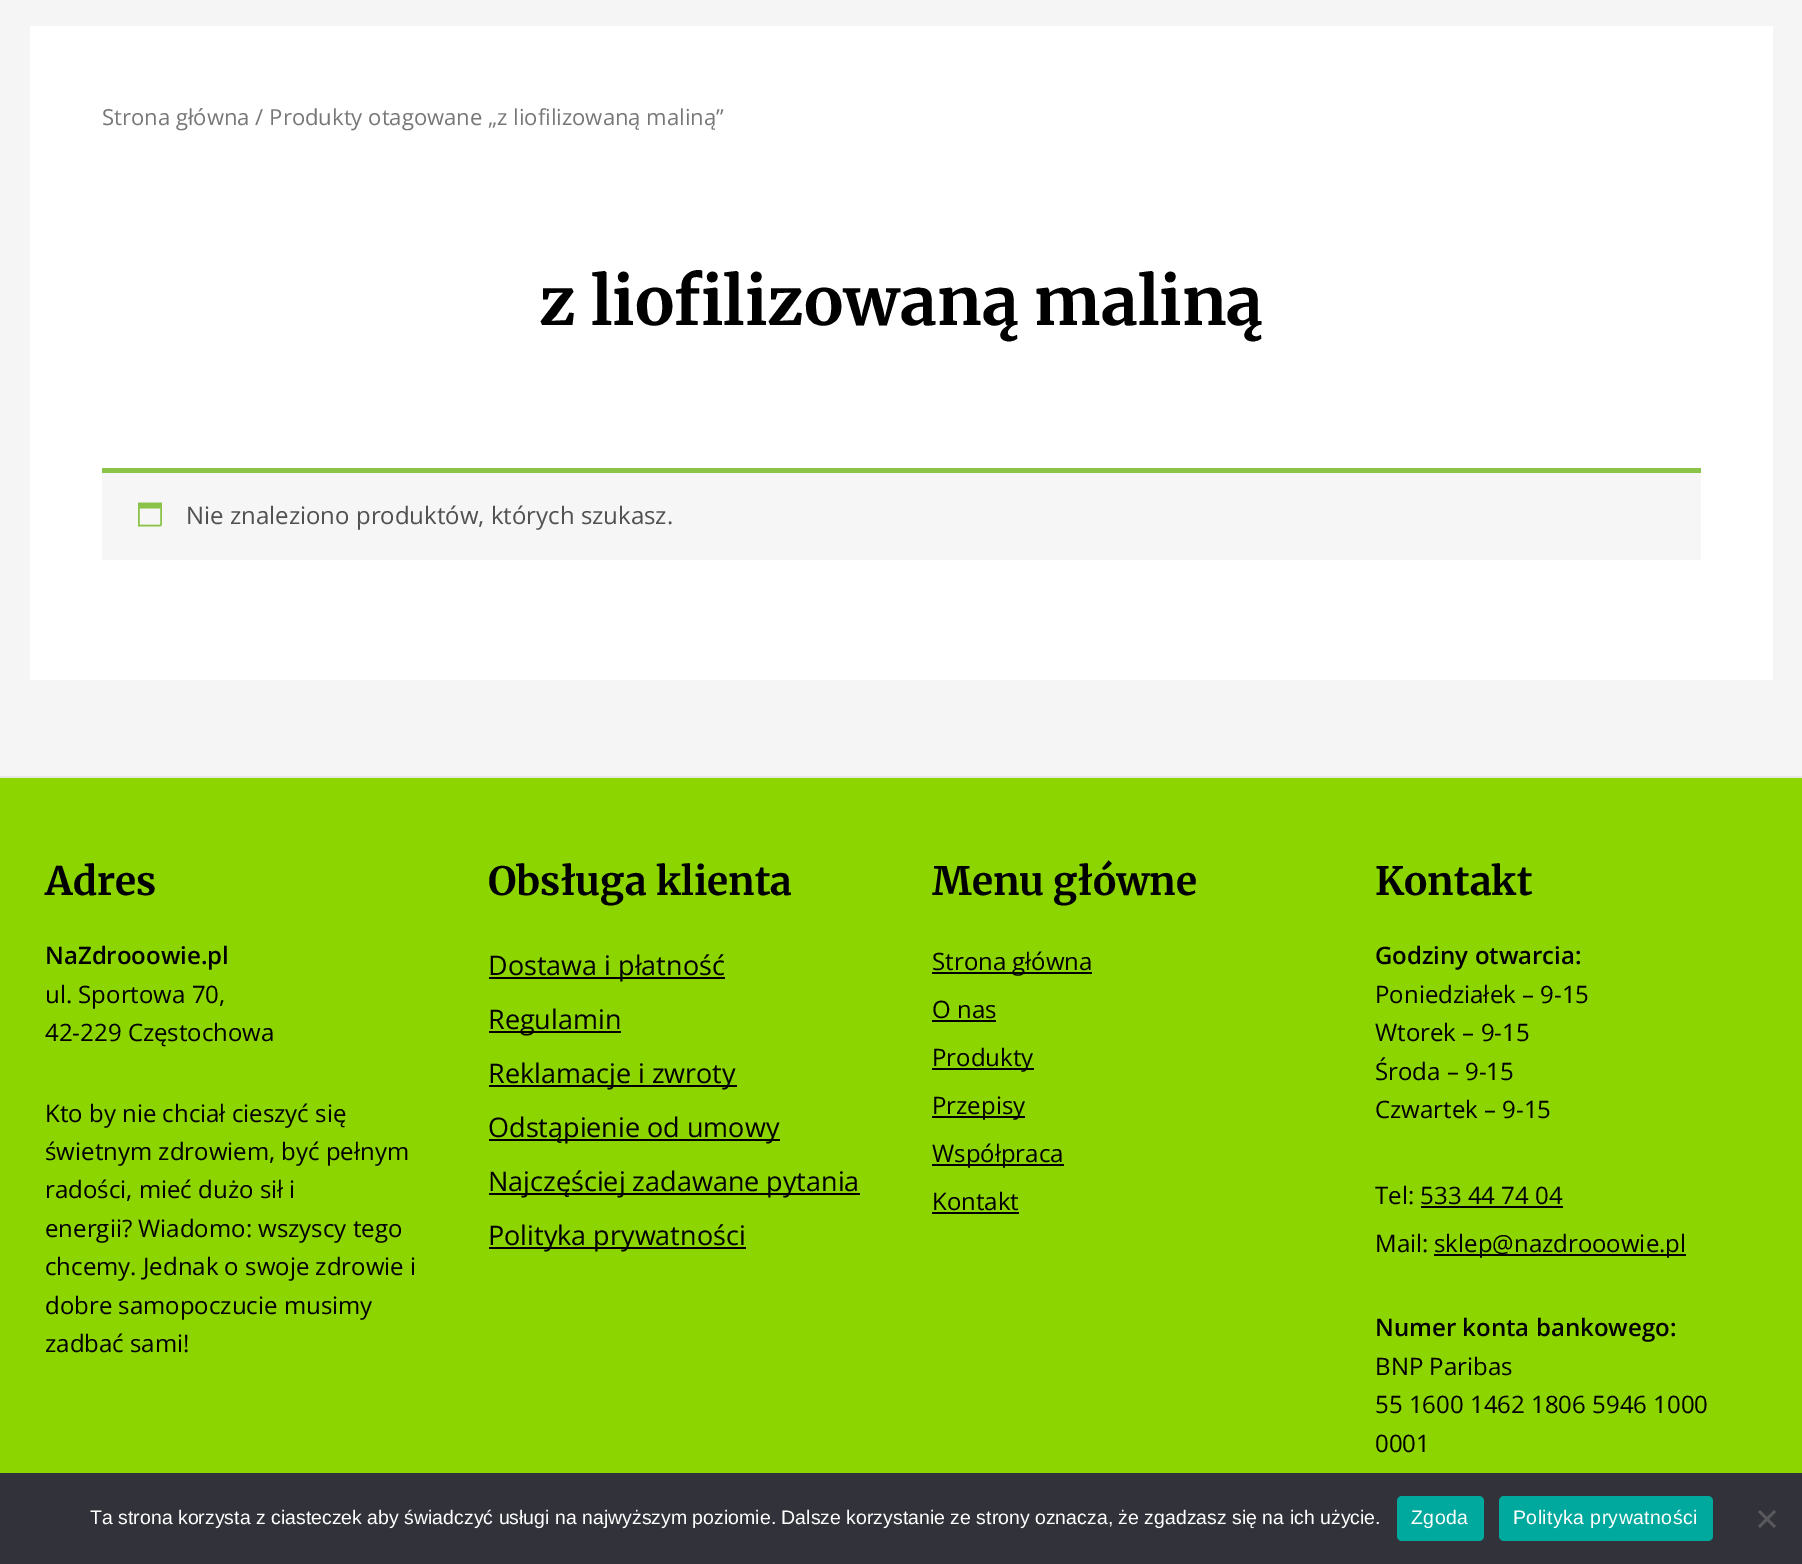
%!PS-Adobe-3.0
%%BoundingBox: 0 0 1802 1564
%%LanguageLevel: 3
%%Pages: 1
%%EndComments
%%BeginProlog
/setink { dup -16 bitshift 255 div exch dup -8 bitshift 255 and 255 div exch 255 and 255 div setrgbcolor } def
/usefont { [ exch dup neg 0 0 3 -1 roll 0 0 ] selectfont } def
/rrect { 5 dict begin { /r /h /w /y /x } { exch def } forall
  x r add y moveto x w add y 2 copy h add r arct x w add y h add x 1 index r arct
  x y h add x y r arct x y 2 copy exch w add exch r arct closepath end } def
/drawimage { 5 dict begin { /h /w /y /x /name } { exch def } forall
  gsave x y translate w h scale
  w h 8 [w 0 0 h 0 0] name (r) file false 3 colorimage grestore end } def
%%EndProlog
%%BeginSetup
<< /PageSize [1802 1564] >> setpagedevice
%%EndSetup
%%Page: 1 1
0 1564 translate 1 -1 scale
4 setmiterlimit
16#F5F5F5 setink
0 0 1802 1564 rectfill
16#FFFFFF setink
30 26 1743 654 rectfill
/OpenSans-Regular 22.1 usefont
16#777777 setink
102 125 moveto (Strona główna / Produkty otagowane „z liofilizowaną maliną”) show
/Merriweather-Light 66 usefont
16#000000 setink
539 325 moveto (z liofilizowaną maliną) show
16#F7F6F7 setink
102 473 1599 87 rectfill
16#8BC34A setink
102 468 1599 5 rectfill
(img1.raw) 138 502 24 25 drawimage
/OpenSans-Regular 24 usefont
16#515151 setink
186 524 moveto (Nie znaleziono produktów, których szukasz.) show
16#8CD500 setink
0 778 1802 695 rectfill
16#E6E6E6 setink
0 776 1802 2 rectfill
/Merriweather-Light 39 usefont
16#000000 setink
45 895 moveto (Adres) show
/OpenSans-SemiBold 24 usefont
45 964 moveto (NaZdrooowie.pl) show
/OpenSans-Regular 24 usefont
[
    [(ul. Sportowa 70,) 45 1003]
    [(42-229 Częstochowa) 45 1041]
    [(Kto by nie chciał cieszyć się) 45 1122]
    [(świetnym zdrowiem, być pełnym) 45 1160]
    [(radości, mieć dużo sił i) 45 1198]
    [(energii? Wiadomo: wszyscy tego) 45 1237]
    [(chcemy. Jednak o swoje zdrowie i) 45 1275]
    [(dobre samopoczucie musimy) 45 1314]
    [(zadbać sami!) 45 1352]
] { aload pop moveto show } forall
/Merriweather-Light 39 usefont
488 895 moveto (Obsługa klienta) show
489 977 236 2 rectfill
/OpenSans-Regular 27 usefont
488 975 moveto (Dostawa i płatność) show
489 1031 132 2 rectfill
488 1029 moveto (Regulamin) show
489 1085 248 2 rectfill
488 1083 moveto (Reklamacje i zwroty) show
489 1139 291 2 rectfill
488 1137 moveto (Odstąpienie od umowy) show
489 1193 371 2 rectfill
488 1191 moveto (Najczęściej zadawane pytania) show
489 1247 257 2 rectfill
488 1245 moveto (Polityka prywatności) show
/Merriweather-Light 39 usefont
932 895 moveto (Menu główne) show
932 972 160 2 rectfill
/OpenSans-Regular 24 usefont
932 970 moveto (Strona główna) show
932 1018 moveto (O nas) show
932 1020 64 2 rectfill
932 1068 102 2 rectfill
932 1066 moveto (Produkty) show
932 1116 93 2 rectfill
932 1114 moveto (Przepisy) show
932 1164 132 2 rectfill
932 1162 moveto (Współpraca) show
932 1210 moveto (Kontakt) show
932 1212 87 2 rectfill
/Merriweather-Light 39 usefont
1375 895 moveto (Kontakt) show
/OpenSans-SemiBold 24 usefont
1375 964 moveto (Godziny otwarcia:) show
/OpenSans-Regular 24 usefont
[
    [(Poniedziałek – 9-15) 1375 1003]
    [(Wtorek – 9-15) 1375 1041]
    [(Środa – 9-15) 1375 1080]
    [(Czwartek – 9-15) 1375 1118]
    [(Tel: 533 44 74 04) 1375 1204]
] { aload pop moveto show } forall
1421 1206 142 2 rectfill
1375 1252 moveto (Mail:) show
1434 1254 252 2 rectfill
1434 1252 moveto (sklep@nazdrooowie.pl) show
/OpenSans-SemiBold 24 usefont
1375 1336 moveto (Numer konta bankowego:) show
/OpenSans-Regular 24 usefont
[
    [(BNP Paribas) 1375 1375]
    [(55 1600 1462 1806 5946 1000) 1375 1413]
    [(0001) 1375 1452]
] { aload pop moveto show } forall
16#32323A setink
0 1473 1802 91 rectfill
/LiberationSans-Regular 19.5 usefont
16#FFFFFF setink
90 1524 moveto (Ta strona korzysta z ciasteczek aby świadczyć usługi na najwyższym poziomie. Dalsze korzystanie ze strony oznacza, że zgadzasz się na ich użycie.) show
16#00A99D setink
1397 1496 87 45 5 rrect fill
16#FFFFFF setink
1411 1524 moveto 0.4 0 (Zgoda) ashow
16#00A99D setink
1499 1496 214 45 5 rrect fill
16#FFFFFF setink
1513 1524 moveto 0.4 0 (Polityka prywatności) ashow
16#59595D setink
1774 1510 moveto 1776 1512 lineto 1760 1528 lineto 1758 1526 lineto closepath fill
1758 1512 moveto 1760 1510 lineto 1776 1526 lineto 1774 1528 lineto closepath fill
showpage
%%EOF
